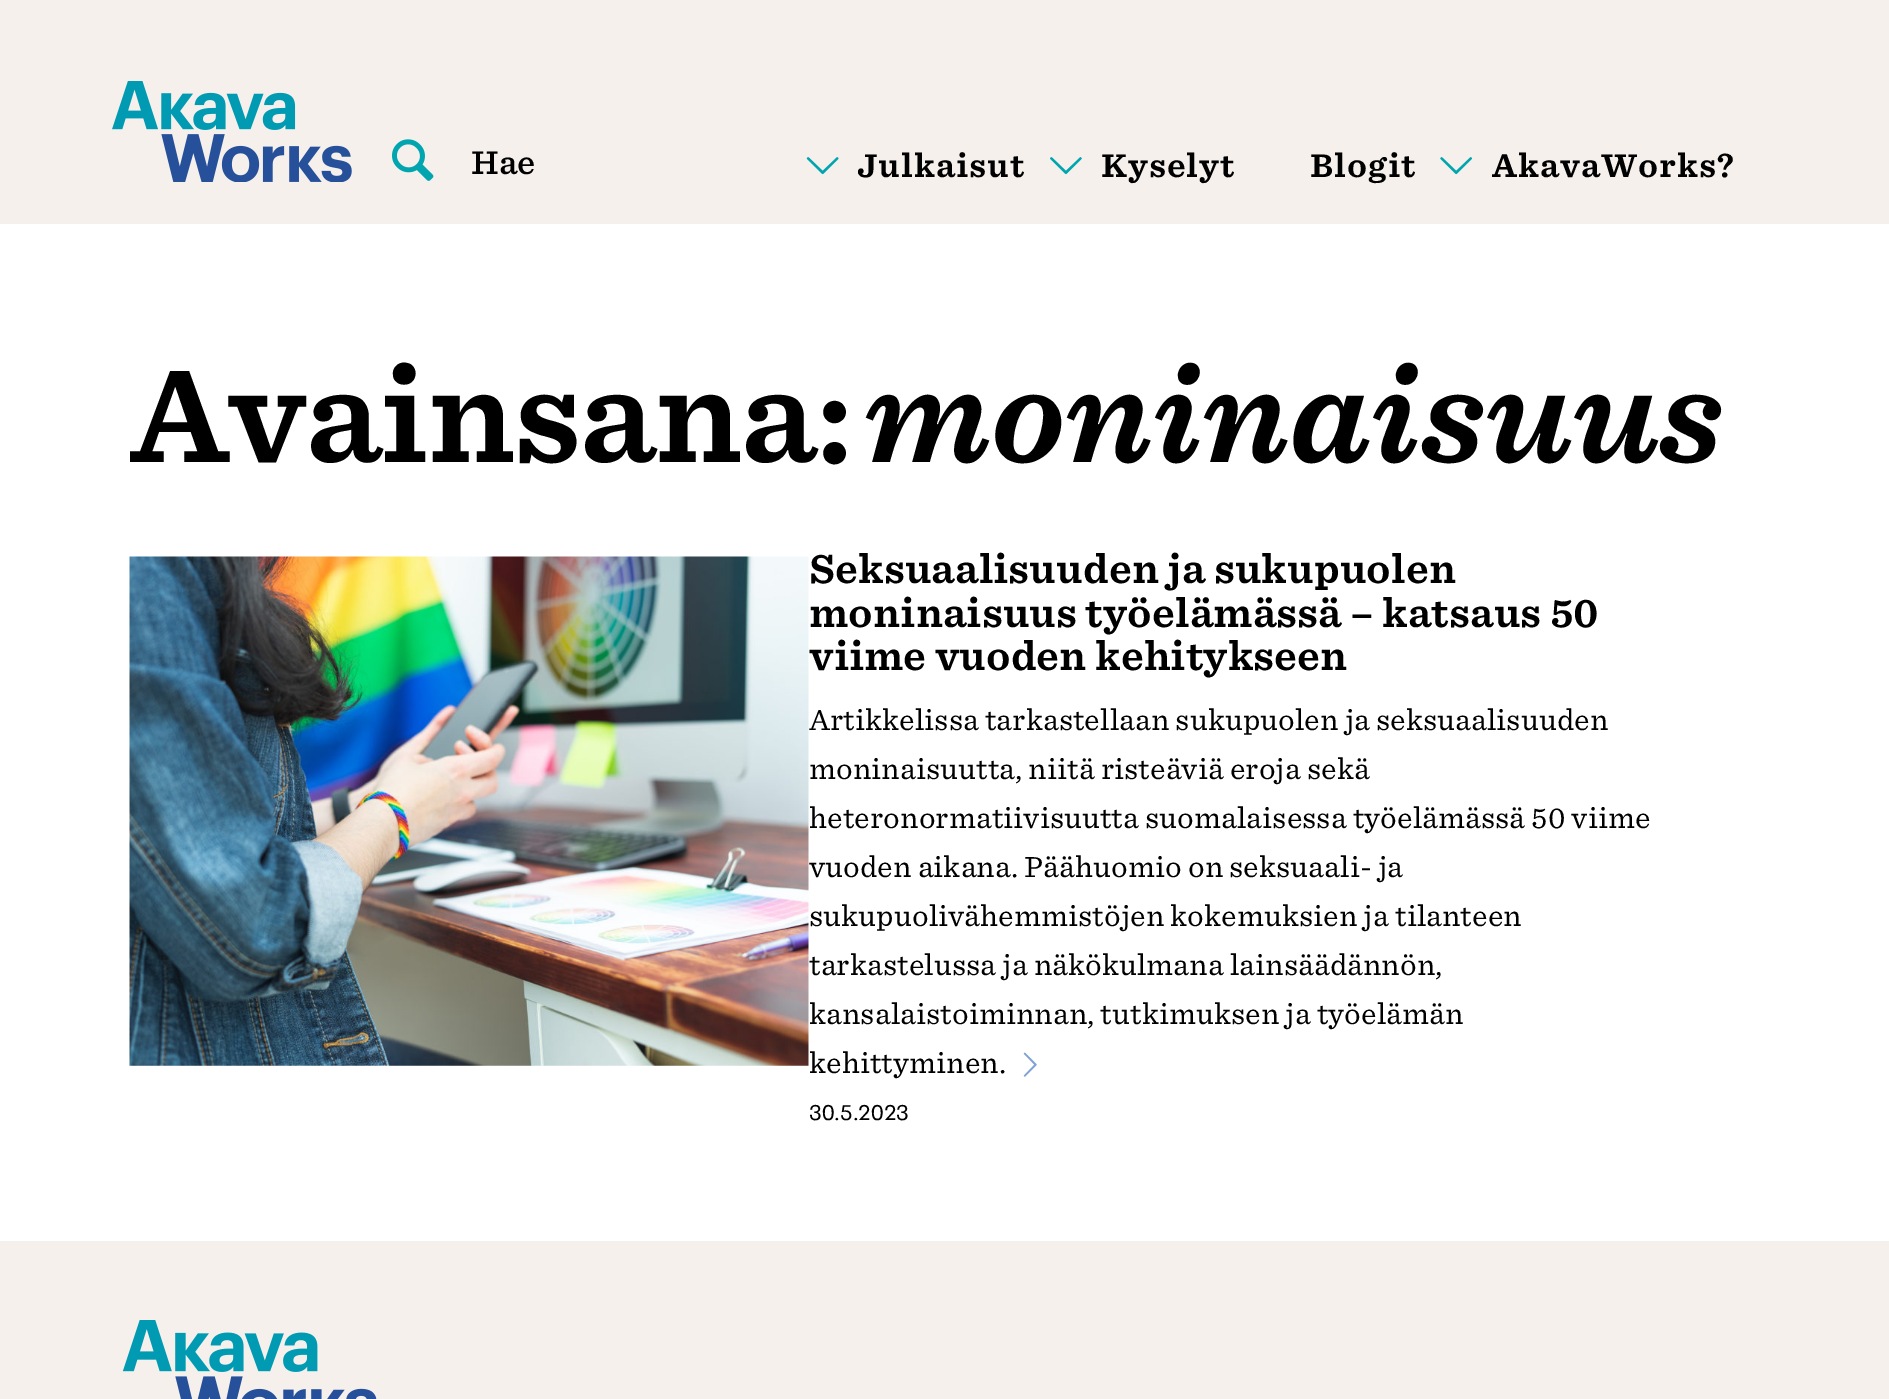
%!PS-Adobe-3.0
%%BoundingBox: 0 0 1889 1399
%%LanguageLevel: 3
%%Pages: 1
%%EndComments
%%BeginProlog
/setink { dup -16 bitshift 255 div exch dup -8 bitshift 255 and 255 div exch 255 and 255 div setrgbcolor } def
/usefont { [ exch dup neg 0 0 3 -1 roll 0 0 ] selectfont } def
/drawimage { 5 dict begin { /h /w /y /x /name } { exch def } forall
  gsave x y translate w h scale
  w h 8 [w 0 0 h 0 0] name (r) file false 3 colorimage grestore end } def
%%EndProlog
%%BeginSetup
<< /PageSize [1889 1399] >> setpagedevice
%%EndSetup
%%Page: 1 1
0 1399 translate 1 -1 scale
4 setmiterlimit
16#F5F0EB setink
0 0 1889 1399 rectfill
(img1.raw) 112 81 240 101 drawimage
(img2.raw) 392 139 42 42 drawimage
/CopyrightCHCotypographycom-Regular 31.5 usefont
16#000000 setink
471 174 moveto (Hae) show
(img3.raw) 806 157 33 18 drawimage
/CopyrightCHCotypographycom-Bold 31.5 usefont
857 177 moveto 0.9 0 (Julkaisut) ashow
(img4.raw) 1050 157 32 18 drawimage
1101 177 moveto 0.9 0 (Kyselyt) ashow
1310 177 moveto 0.9 0 (Blogit) ashow
(img5.raw) 1440 157 32 18 drawimage
1492 177 moveto 0.9 0 (AkavaWorks?) ashow
16#FFFFFF setink
0 224 1889 1017 rectfill
/CopyrightCHCotypographycom-Bold 126 usefont
16#000000 setink
130 462 moveto -2.6 0 (Avainsana:) ashow
/CopyrightCHCotypographycom-BoldItalic 126 usefont
863 462 moveto -2.6 0 (moninaisuus) ashow
(img6.raw) 129 556 680 510 drawimage
/CopyrightCHCotypographycom-Bold 38.5 usefont
[
    [(Seksuaalisuuden ja sukupuolen) 809 583]
    [(moninaisuus työelämässä – katsaus 50) 809 627]
    [(viime vuoden kehitykseen) 809 670]
] { aload pop moveto show } forall
/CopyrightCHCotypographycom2-Regular 28 usefont
[
    [(Artikkelissa tarkastellaan sukupuolen ja seksuaalisuuden) 809 730]
    [(moninaisuutta, niitä risteäviä eroja sekä) 809 779]
    [(heteronormatiivisuutta suomalaisessa työelämässä 50 viime) 809 828]
    [(vuoden aikana. Päähuomio on seksuaali- ja) 809 877]
    [(sukupuolivähemmistöjen kokemuksien ja tilanteen) 809 926]
    [(tarkastelussa ja näkökulmana lainsäädännön,) 809 975]
    [(kansalaistoiminnan, tutkimuksen ja työelämän) 809 1024]
    [(kehittyminen.) 809 1073]
] { aload pop moveto show } forall
(img7.raw) 1023 1052 14 25 drawimage
/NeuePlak-Regular 21 usefont
809 1120 moveto (30.5.2023) show
(img8.raw) 122 1320 255 79 drawimage
showpage
%%EOF
